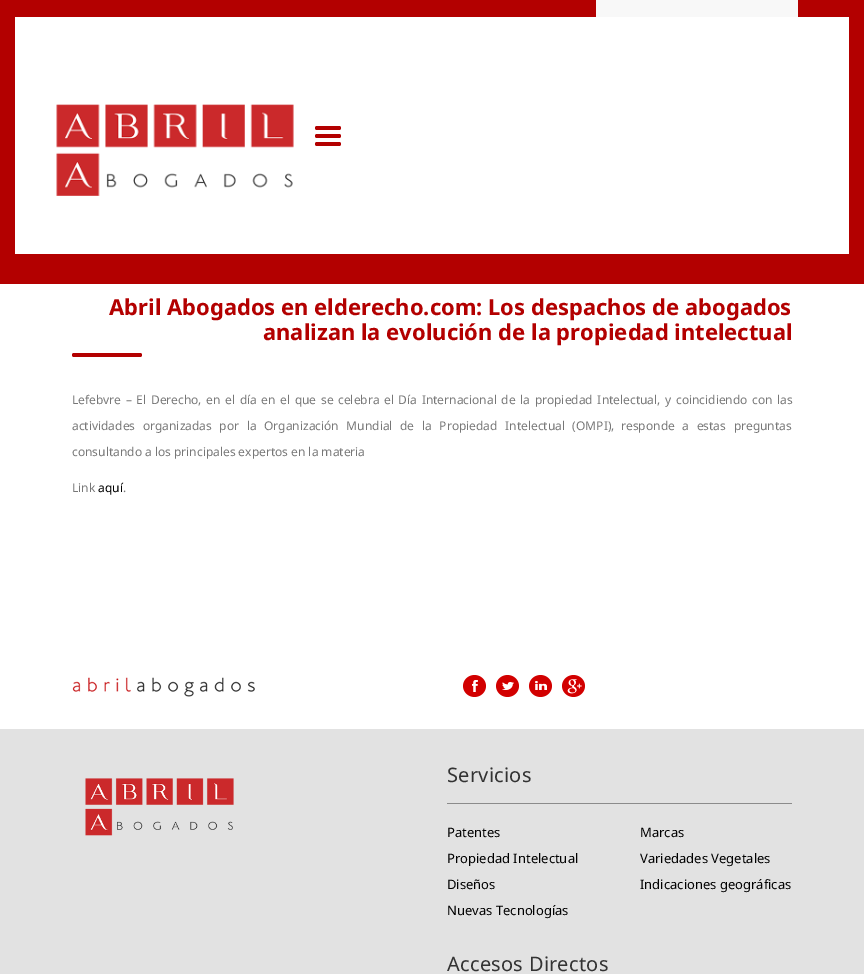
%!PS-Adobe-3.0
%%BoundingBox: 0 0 864 974
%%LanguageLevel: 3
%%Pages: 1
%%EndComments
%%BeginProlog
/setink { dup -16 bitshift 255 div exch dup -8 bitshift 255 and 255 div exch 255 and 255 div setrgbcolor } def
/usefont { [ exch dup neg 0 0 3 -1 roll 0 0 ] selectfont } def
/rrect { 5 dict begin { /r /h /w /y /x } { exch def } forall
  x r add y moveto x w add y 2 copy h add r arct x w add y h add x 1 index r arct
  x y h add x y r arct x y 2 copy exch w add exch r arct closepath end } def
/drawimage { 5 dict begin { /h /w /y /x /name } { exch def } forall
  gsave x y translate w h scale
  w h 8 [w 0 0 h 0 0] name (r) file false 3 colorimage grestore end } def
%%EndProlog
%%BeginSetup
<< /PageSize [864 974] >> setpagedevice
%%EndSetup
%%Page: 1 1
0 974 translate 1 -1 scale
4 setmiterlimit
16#FFFFFF setink
0 0 864 974 rectfill
[
    [0 0 864 284 16#B30000]
    [596 0 202 17 16#F8F8F8]
    [15 17 834 237 16#FFFFFF]
] { aload pop setink rectfill } forall
(img1.raw) 56 104 238 92 drawimage
16#B30000 setink
315 134 26 4 2 rrect fill
315 126 26 4 2 rrect fill
315 142 26 4 2 rrect fill
/NotoSans-Bold 22 usefont
109 315 moveto (Abril Abogados en elderecho.com: Los despachos de abogados) show
263 340 moveto (analizan la evolución de la propiedad intelectual) show
72 353 70 4 2 rrect fill
/NotoSans-Regular 12 usefont
16#777777 setink
72 404 moveto 1.5 0 32 (Lefebvre – El Derecho, en el día en el que se celebra el Día Internacional de la propiedad Intelectual, y coincidiendo con las) widthshow
72 430 moveto 4.5 0 32 (actividades organizadas por la Organización Mundial de la Propiedad Intelectual \(OMPI\),) widthshow
621 430 moveto 4.5 0 32 (responde a estas preguntas) widthshow
72 456 moveto (consultando a los principales expertos en la materia) show
72 492 moveto (Link) show
16#000000 setink
98 492 moveto (aquí) show
16#777777 setink
123 492 moveto (.) show
(img2.raw) 72 677 183 20 drawimage
(img3.raw) 463 675 23 22 drawimage
(img4.raw) 496 675 23 22 drawimage
(img5.raw) 529 675 23 22 drawimage
(img6.raw) 562 675 23 22 drawimage
16#E2E2E2 setink
0 729 864 245 rectfill
(img7.raw) 85 778 149 58 drawimage
16#8B8B8B setink
447 803 345 1 rectfill
/NotoSans-Regular 20 usefont
16#333333 setink
447 782 moveto 0.25 0 (Servicios) ashow
/NotoSans-Regular 13 usefont
16#000000 setink
[
    [(Patentes) 447 837]
    [(Marcas) 640 837]
    [(Propiedad Intelectual) 447 863]
    [(Variedades Vegetales) 640 863]
    [(Diseños) 447 889]
    [(Indicaciones geográficas) 640 889]
    [(Nuevas Tecnologías) 447 915]
] { aload pop moveto show } forall
/NotoSans-Regular 20 usefont
16#333333 setink
447 971 moveto 0.25 0 (Accesos Directos) ashow
showpage
%%EOF
